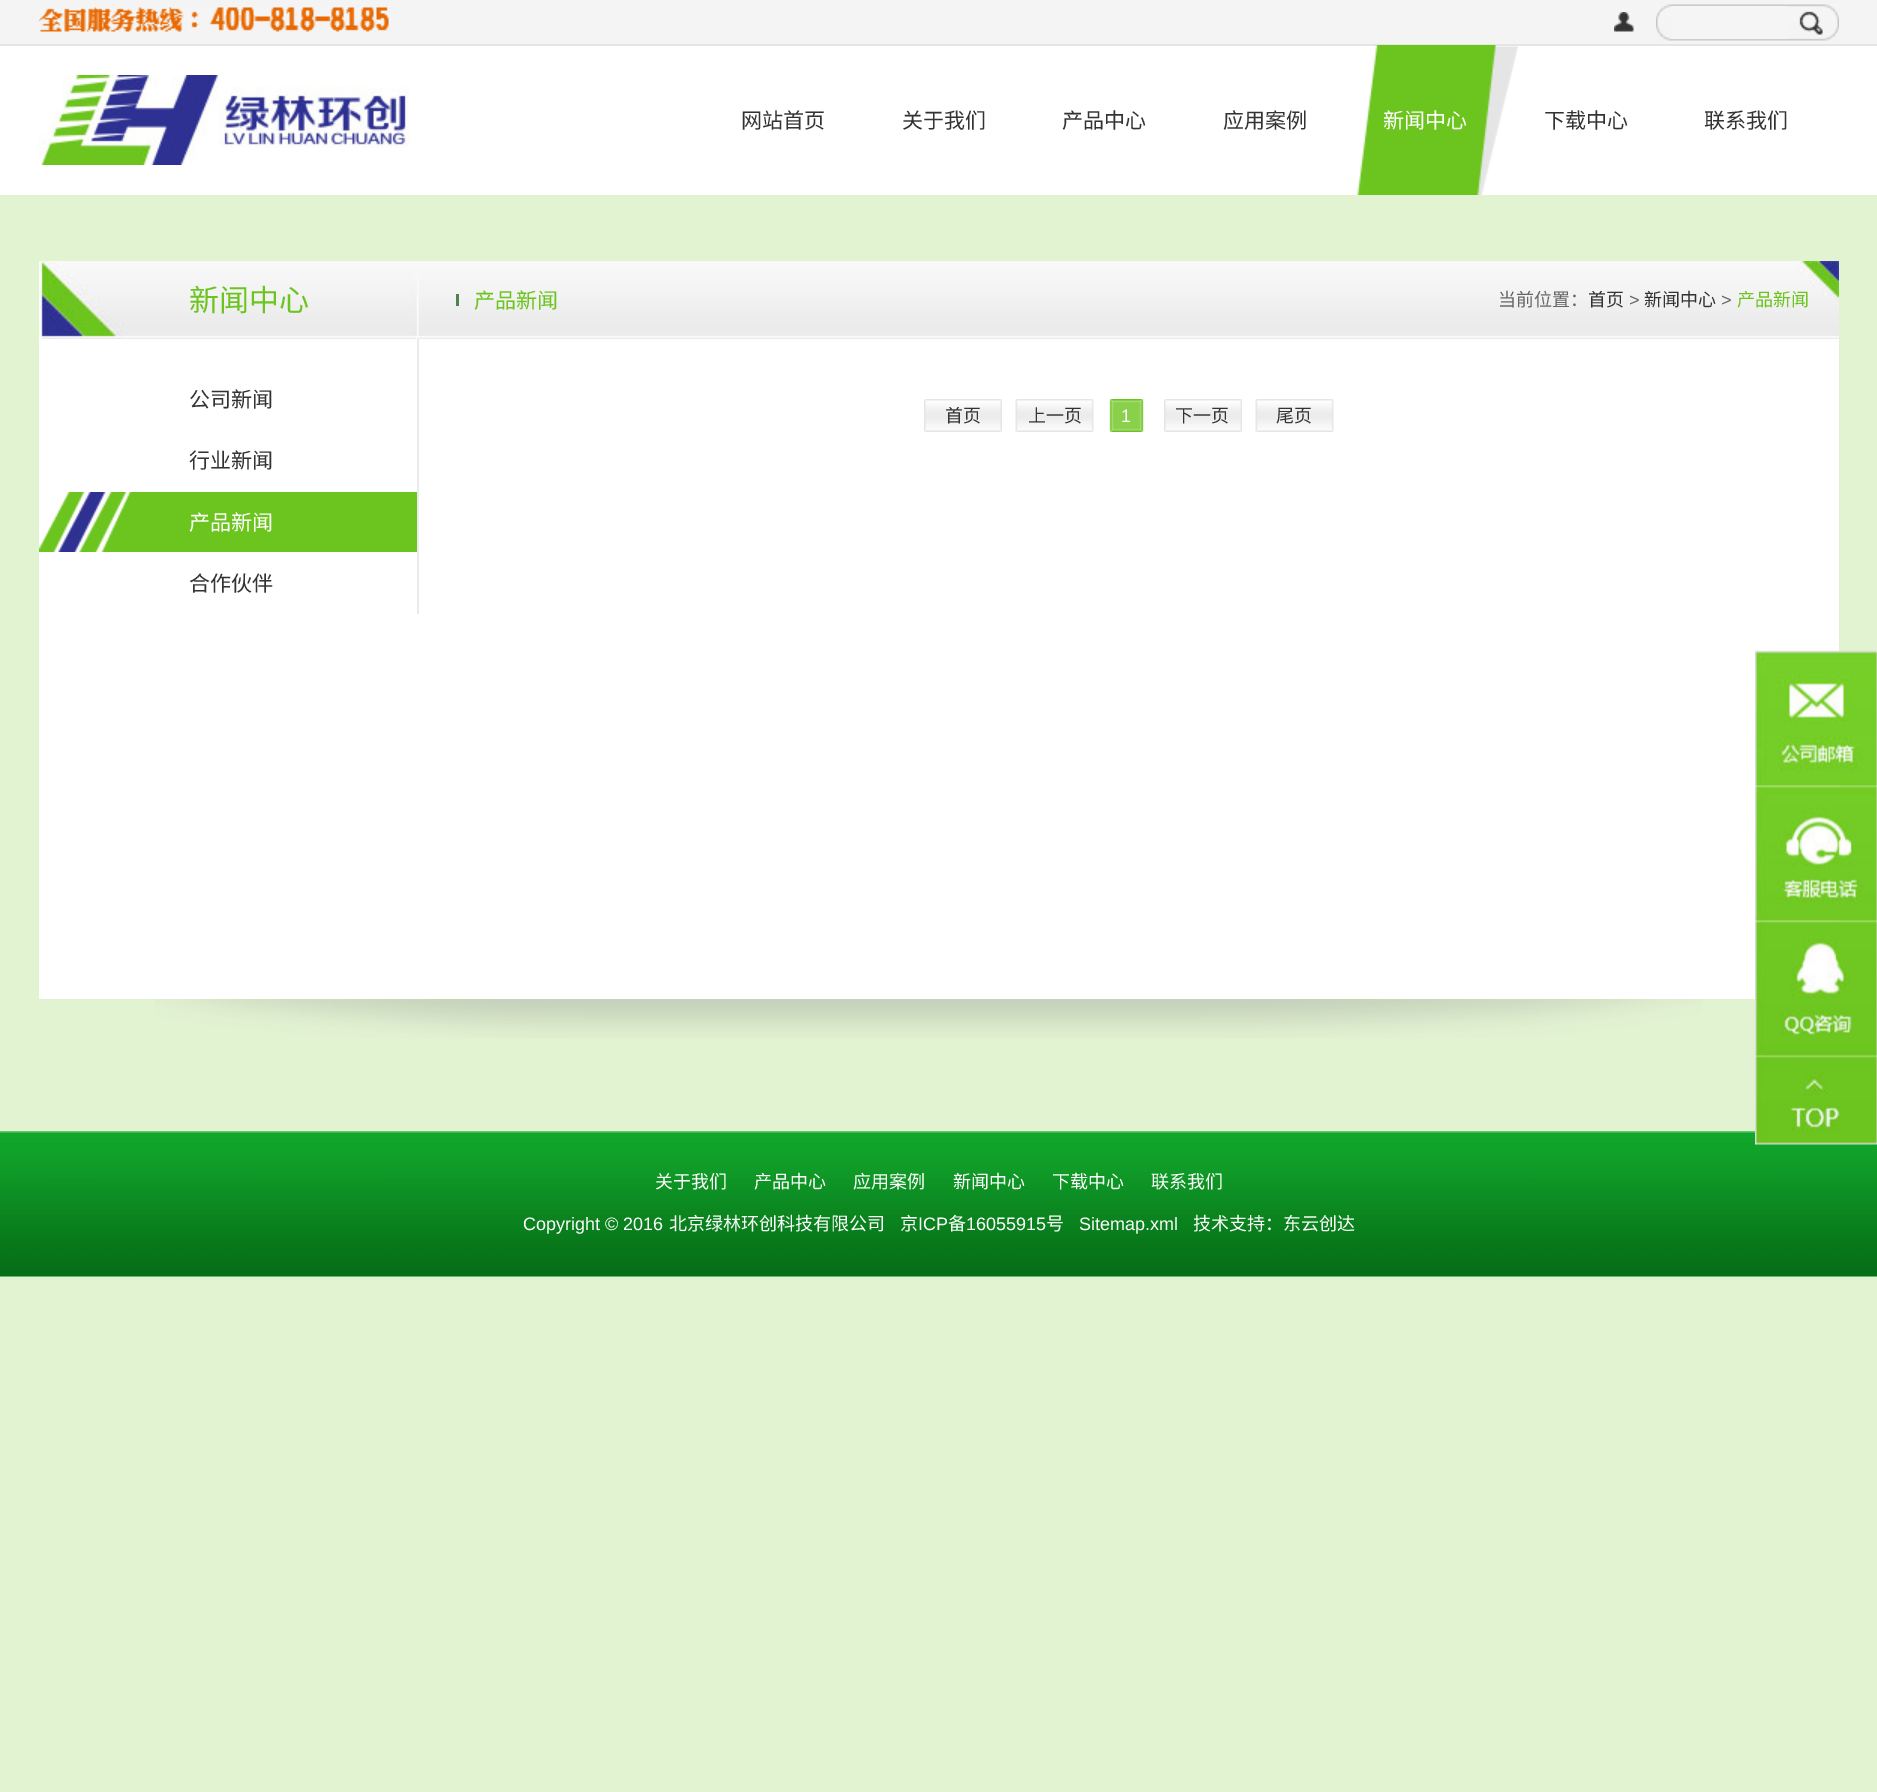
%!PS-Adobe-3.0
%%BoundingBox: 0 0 1877 1792
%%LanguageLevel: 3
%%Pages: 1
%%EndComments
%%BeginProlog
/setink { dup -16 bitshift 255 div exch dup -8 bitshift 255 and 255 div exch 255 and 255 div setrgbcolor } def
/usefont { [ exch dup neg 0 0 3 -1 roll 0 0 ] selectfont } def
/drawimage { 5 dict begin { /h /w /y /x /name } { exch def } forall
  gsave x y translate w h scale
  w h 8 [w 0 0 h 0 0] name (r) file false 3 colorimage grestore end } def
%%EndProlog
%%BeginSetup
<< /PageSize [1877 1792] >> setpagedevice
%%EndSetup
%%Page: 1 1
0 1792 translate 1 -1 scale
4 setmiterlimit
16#E2F3D2 setink
0 0 1877 1792 rectfill
[
    [0 46 1877 149 16#FFFFFF]
    [0 0 1877 44 16#F4F4F4]
    [0 44 1877 2 16#E5E5E5]
] { aload pop setink rectfill } forall
(img1.raw) 39 7 350 25 drawimage
(img2.raw) 1614 12 20 20 drawimage
(img3.raw) 1656 4 183 37 drawimage
16#F5F5F5 setink
1671 6 117 33 rectfill
(img4.raw) 39 75 371 90 drawimage
/NotoSansCJKSC-Regular 21 usefont
16#333333 setink
[
    [(网站首页) 741 128]
    [(关于我们) 902 128]
    [(产品中心) 1062 128]
    [(应用案例) 1223 128]
] { aload pop moveto show } forall
(img5.raw) 1357 45 161 150 drawimage
16#FFFFFF setink
1383 128 moveto (新闻中心) show
16#333333 setink
1544 128 moveto (下载中心) show
1704 128 moveto (联系我们) show
(img6.raw) 155 999 1547 39 drawimage
16#FFFFFF setink
39 261 1800 738 rectfill
(img7.raw) 39 261 380 78 drawimage
/NotoSansCJKSC-Regular 30 usefont
16#6CC41E setink
189 311 moveto (新闻中心) show
16#EBEBEB setink
417 339 2 275 rectfill
/NotoSansCJKSC-Regular 21 usefont
16#333333 setink
189 407 moveto (公司新闻) show
189 468 moveto (行业新闻) show
(img8.raw) 39 492 378 60 drawimage
16#FFFFFF setink
189 530 moveto (产品新闻) show
16#333333 setink
189 591 moveto (合作伙伴) show
(img9.raw) 418 261 1421 78 drawimage
16#508350 setink
456 294 3 12 rectfill
16#6CC41E setink
474 308 moveto (产品新闻) show
/NotoSansCJKSC-Regular 18 usefont
16#666666 setink
1498 306 moveto (当前位置：) show
16#333333 setink
1588 306 moveto (首页) show
/LiberationSans-Regular 18 usefont
16#666666 setink
1629 306 moveto (>) show
/NotoSansCJKSC-Regular 18 usefont
16#333333 setink
1644 306 moveto (新闻中心) show
/LiberationSans-Regular 18 usefont
16#666666 setink
1721 306 moveto (>) show
/NotoSansCJKSC-Regular 18 usefont
16#6CC41E setink
1737 306 moveto (产品新闻) show
(img10.raw) 924 399 78 33 drawimage
16#333333 setink
945 422 moveto (首页) show
(img11.raw) 1015 399 79 33 drawimage
1028 422 moveto (上一页) show
(img12.raw) 1109 399 35 33 drawimage
/LiberationSans-Regular 18 usefont
16#FFFFFF setink
1121 422 moveto (1) show
(img13.raw) 1164 399 78 33 drawimage
/NotoSansCJKSC-Regular 18 usefont
16#333333 setink
1175 422 moveto (下一页) show
(img11.raw) 1255 399 79 33 drawimage
1276 422 moveto (尾页) show
(img14.raw) 1755 650 122 137 drawimage
(img15.raw) 1755 785 122 137 drawimage
(img16.raw) 1755 920 122 137 drawimage
(img18.raw) 0 1131 1877 146 drawimage
(img17.raw) 1755 1055 122 90 drawimage
16#FFFFFF setink
[
    [(关于我们) 655 1188]
    [(产品中心) 754 1188]
    [(应用案例) 853 1188]
    [(新闻中心) 953 1188]
    [(下载中心) 1052 1188]
    [(联系我们) 1151 1188]
] { aload pop moveto show } forall
/LiberationSans-Regular 18 usefont
523 1230 moveto (Copyright © 2016) show
/NotoSansCJKSC-Regular 18 usefont
669 1230 moveto (北京绿林环创科技有限公司) show
900 1230 moveto (京) show
/LiberationSans-Regular 18 usefont
918 1230 moveto (ICP) show
/NotoSansCJKSC-Regular 18 usefont
948 1230 moveto (备) show
/LiberationSans-Regular 18 usefont
966 1230 moveto (16055915) show
/NotoSansCJKSC-Regular 18 usefont
1046 1230 moveto (号) show
/LiberationSans-Regular 18 usefont
1079 1230 moveto (Sitemap.xml) show
/NotoSansCJKSC-Regular 18 usefont
1193 1230 moveto (技术支持：东云创达) show
showpage
%%EOF
